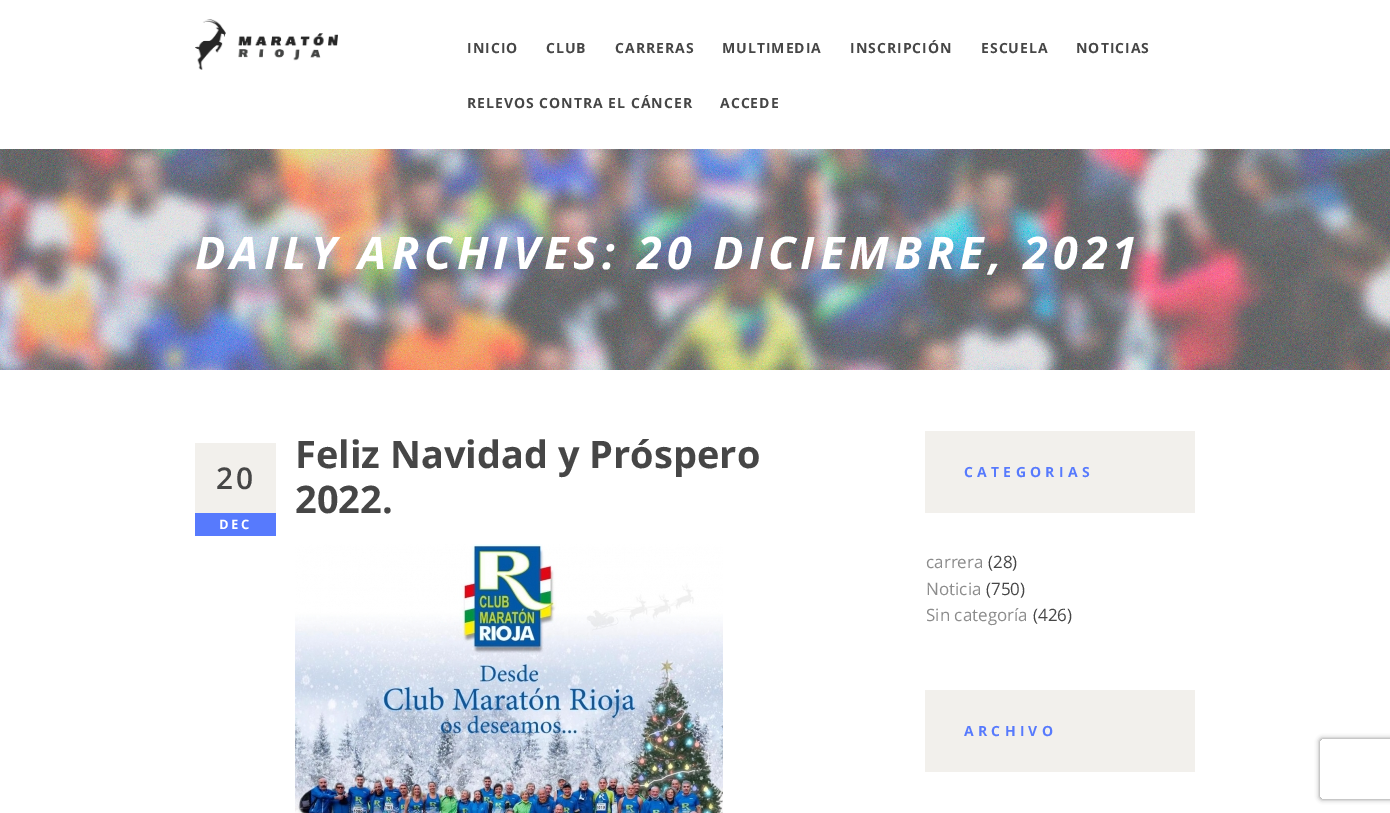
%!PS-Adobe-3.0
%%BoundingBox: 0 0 1390 813
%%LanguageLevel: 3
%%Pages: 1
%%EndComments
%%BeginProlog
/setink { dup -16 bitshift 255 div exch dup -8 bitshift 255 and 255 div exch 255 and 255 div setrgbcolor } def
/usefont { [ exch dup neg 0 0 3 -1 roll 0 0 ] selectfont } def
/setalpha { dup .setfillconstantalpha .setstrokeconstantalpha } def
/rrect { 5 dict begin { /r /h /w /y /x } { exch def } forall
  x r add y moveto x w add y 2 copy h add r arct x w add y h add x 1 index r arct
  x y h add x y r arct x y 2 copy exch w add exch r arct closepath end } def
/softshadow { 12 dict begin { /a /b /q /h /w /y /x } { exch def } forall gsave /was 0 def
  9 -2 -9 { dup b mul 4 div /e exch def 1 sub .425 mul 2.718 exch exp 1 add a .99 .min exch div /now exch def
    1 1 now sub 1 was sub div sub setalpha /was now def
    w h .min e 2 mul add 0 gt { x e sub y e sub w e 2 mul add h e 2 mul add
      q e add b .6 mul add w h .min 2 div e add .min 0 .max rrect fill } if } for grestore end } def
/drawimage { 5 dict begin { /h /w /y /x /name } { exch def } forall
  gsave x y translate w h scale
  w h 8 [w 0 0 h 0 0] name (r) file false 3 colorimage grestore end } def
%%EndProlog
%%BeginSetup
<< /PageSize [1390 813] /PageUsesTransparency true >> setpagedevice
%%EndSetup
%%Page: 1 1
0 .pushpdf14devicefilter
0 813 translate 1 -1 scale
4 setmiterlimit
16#FFFFFF setink
0 0 1390 813 rectfill
(img1.raw) 195 19 143 51 drawimage
/OpenSans-Bold 14 usefont
16#464646 setink
467 53 moveto 1 0 (INICIO) ashow
546 53 moveto 1 0 (CLUB) ashow
615 53 moveto 1 0 (CARRERAS) ashow
722 53 moveto 1 0 (MULTIMEDIA) ashow
850 53 moveto 1 0 (INSCRIPCIÓN) ashow
981 53 moveto 1 0 (ESCUELA) ashow
1076 53 moveto 1 0 (NOTICIAS) ashow
467 108 moveto 1 0 (RELEVOS CONTRA EL CÁNCER) ashow
720 108 moveto 1 0 (ACCEDE) ashow
(img2.raw) 0 149 1390 221 drawimage
/OpenSans-BoldItalic 45 usefont
16#FFFFFF setink
195 269 moveto 5 0 (DAILY ARCHIVES: 20 DICIEMBRE, 2021) ashow
16#F2F0EC setink
195 443 81 70 rectfill
/OpenSans-SemiBold 30 usefont
16#464646 setink
216 489 moveto 2.5 0 (20) ashow
16#577AFD setink
195 513 81 23 rectfill
/OpenSans-Bold 13 usefont
16#FFFFFF setink
219 529 moveto 2.5 0 (DEC) ashow
/OpenSans-Bold 38 usefont
16#464646 setink
295 468 moveto (Feliz Navidad y Próspero) show
295 513 moveto (2022.) show
(img3.raw) 295 544 428 269 drawimage
16#F2F0EC setink
925 431 270 82 rectfill
/OpenSans-Bold 14 usefont
16#577AFD setink
964 477 moveto 4.25 0 (CATEGORIAS) ashow
/OpenSans-Regular 17 usefont
16#8C8C8C setink
926 568 moveto (carrera) show
16#464646 setink
988 568 moveto (\(28\)) show
16#8C8C8C setink
926 595 moveto (Noticia) show
16#464646 setink
986 595 moveto (\(750\)) show
16#8C8C8C setink
926 621 moveto (Sin categoría) show
16#464646 setink
1033 621 moveto (\(426\)) show
16#F2F0EC setink
925 690 270 82 rectfill
/OpenSans-Bold 14 usefont
16#577AFD setink
964 736 moveto 4.25 0 (ARCHIVO) ashow
gsave
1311 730 moveto 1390 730 lineto 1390 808 lineto 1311 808 lineto closepath 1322 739 moveto 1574 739 lineto 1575 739 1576 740 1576 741 curveto 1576 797 lineto 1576 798 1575 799 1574 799 curveto 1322 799 lineto 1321 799 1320 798 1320 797 curveto 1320 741 lineto 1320 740 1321 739 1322 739 curveto closepath eoclip newpath
16#808080 setink
1320 739 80 60 2 2.5 1 softshadow
grestore
.poppdf14devicefilter showpage
%%EOF
